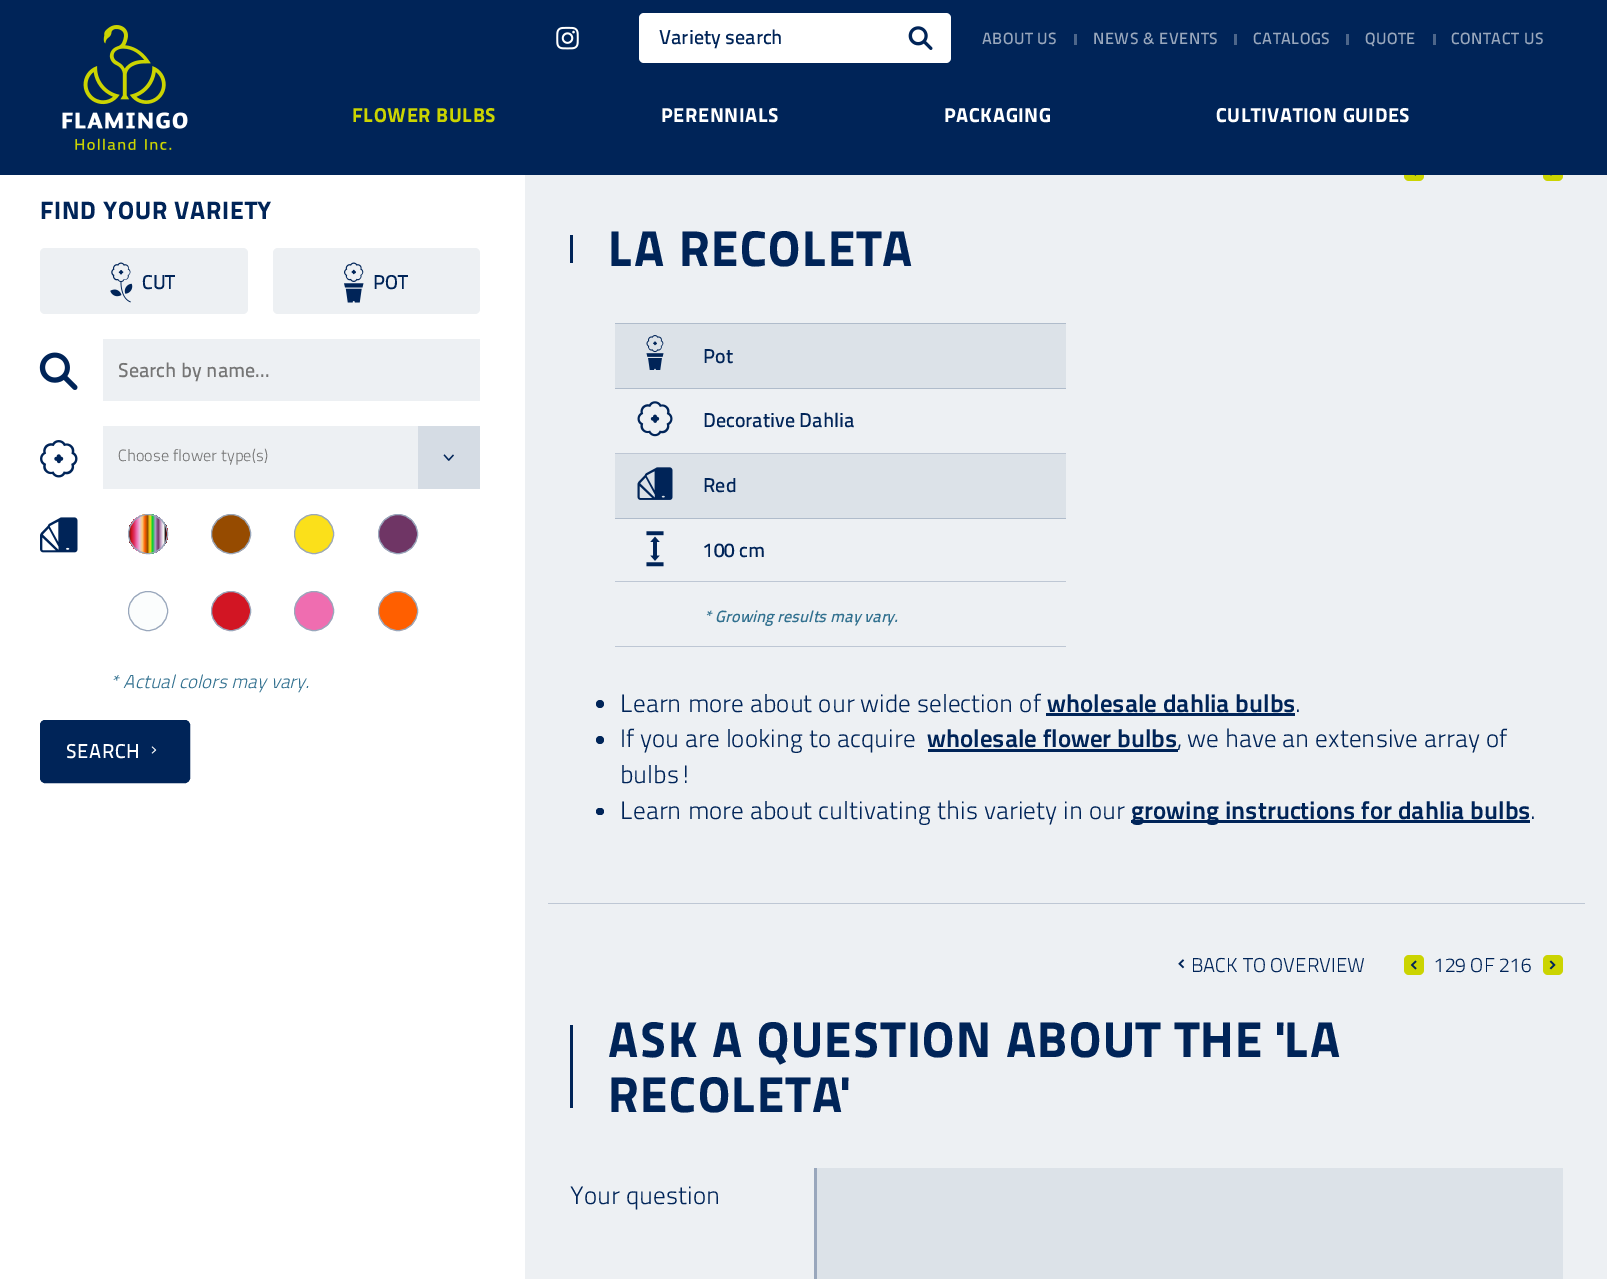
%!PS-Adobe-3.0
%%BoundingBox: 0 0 1607 1279
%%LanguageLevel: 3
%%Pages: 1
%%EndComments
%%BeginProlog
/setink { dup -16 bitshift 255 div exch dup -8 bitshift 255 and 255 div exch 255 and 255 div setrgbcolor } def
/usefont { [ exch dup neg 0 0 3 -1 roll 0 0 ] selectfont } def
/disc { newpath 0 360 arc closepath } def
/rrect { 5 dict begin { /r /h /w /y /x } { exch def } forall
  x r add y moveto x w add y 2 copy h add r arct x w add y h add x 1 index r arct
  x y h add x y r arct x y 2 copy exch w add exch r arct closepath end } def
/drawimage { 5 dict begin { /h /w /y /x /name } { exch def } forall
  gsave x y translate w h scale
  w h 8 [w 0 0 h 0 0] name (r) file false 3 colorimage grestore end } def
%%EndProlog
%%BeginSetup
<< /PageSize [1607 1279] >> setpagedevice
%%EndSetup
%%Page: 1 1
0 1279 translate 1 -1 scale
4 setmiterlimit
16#EDF0F3 setink
0 0 1607 1279 rectfill
16#CBD401 setink
1404 161 20 20 5 rrect fill
1543 161 20 20 5 rrect fill
16#002458 setink
0 0 1607 175 rectfill
(img1.raw) 62 25 126 125 drawimage
(img2.raw) 556 26 23 24 drawimage
16#FFFFFF setink
639 13 312 50 5 rrect fill
/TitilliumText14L-SemiBold 20 usefont
16#002458 setink
659 44 moveto (Variety search) show
(img3.raw) 908 26 25 24 drawimage
/TitilliumText14L-SemiBold 16.25 usefont
16#99A7BC setink
982 44 moveto 0.5 0 (ABOUT US) ashow
16#4D668A setink
1074 34 3 11 rectfill
16#99A7BC setink
1093 44 moveto 0.5 0 (NEWS & EVENTS) ashow
16#4D668A setink
1234 34 3 11 rectfill
16#99A7BC setink
1253 44 moveto 0.5 0 (CATALOGS) ashow
16#4D668A setink
1346 34 3 11 rectfill
16#99A7BC setink
1365 44 moveto 0.5 0 (QUOTE) ashow
16#4D668A setink
1433 34 3 11 rectfill
16#99A7BC setink
1451 44 moveto 0.5 0 (CONTACT US) ashow
/TitilliumText14L-Black 20 usefont
16#CBD401 setink
352 122 moveto 0.6 0 (FLOWER BULBS) ashow
16#FFFFFF setink
661 122 moveto 0.6 0 (PERENNIALS) ashow
944 122 moveto 0.6 0 (PACKAGING) ashow
1216 122 moveto 0.6 0 (CULTIVATION GUIDES) ashow
0 175 525 1104 rectfill
/TitilliumText14L-Black 25 usefont
16#002458 setink
40 219 moveto 0.75 0 (FIND YOUR VARIETY) ashow
16#EDF0F3 setink
40 248 208 66 5 rrect fill
(img4.raw) 110 262 23 41 drawimage
/TitilliumText14L-SemiBold 20 usefont
16#002458 setink
142 289 moveto (CUT) show
16#EDF0F3 setink
273 248 207 66 5 rrect fill
(img5.raw) 344 262 20 41 drawimage
16#002458 setink
373 289 moveto (POT) show
(img6.raw) 39 352 39 38 drawimage
16#EDF0F3 setink
103 339 377 62 rectfill
16#757575 setink
118 377 moveto (Search by name...) show
(img7.raw) 40 440 38 38 drawimage
16#EDF0F3 setink
103 426 315 63 rectfill
/TitilliumText14L-Light 16.25 usefont
16#757575 setink
118 461 moveto (Choose flower type\(s\)) show
16#D5DCE4 setink
418 426 62 63 rectfill
(img8.raw) 443 454 11 7 drawimage
(img9.raw) 40 517 38 36 drawimage
gsave
128 514 40 40 20 rrect clip newpath
gsave 129 514 moveto 166 514 lineto 166 554 lineto 129 554 lineto closepath clip newpath
<< /ShadingType 2 /ColorSpace /DeviceRGB /Coords [129 534 166 534] /Extend [true true] /Function << /FunctionType 3 /Domain [0 1] /Functions [<< /FunctionType 2 /Domain [0 1] /C0 [0.38 0.078 0.051] /C1 [0.824 0.082 0.137] /N 1 >> << /FunctionType 2 /Domain [0 1] /C0 [0.824 0.082 0.137] /C1 [0.871 0.192 0.388] /N 1 >> << /FunctionType 2 /Domain [0 1] /C0 [0.871 0.192 0.388] /C1 [0.937 0.427 0.69] /N 1 >> << /FunctionType 2 /Domain [0 1] /C0 [0.937 0.427 0.69] /C1 [0.91 0.741 0.863] /N 1 >> << /FunctionType 2 /Domain [0 1] /C0 [0.91 0.741 0.863] /C1 [0.976 0.8 0.482] /N 1 >> << /FunctionType 2 /Domain [0 1] /C0 [0.976 0.8 0.482] /C1 [1 0.373 0] /N 1 >> << /FunctionType 2 /Domain [0 1] /C0 [1 0.373 0] /C1 [0.588 0.294 0] /N 1 >> << /FunctionType 2 /Domain [0 1] /C0 [0.588 0.294 0] /C1 [0.984 0.878 0.102] /N 1 >> << /FunctionType 2 /Domain [0 1] /C0 [0.984 0.878 0.102] /C1 [0 0.8 0.2] /N 1 >> << /FunctionType 2 /Domain [0 1] /C0 [0 0.8 0.2] /C1 [0.698 0.62 0.8] /N 1 >> << /FunctionType 2 /Domain [0 1] /C0 [0.698 0.62 0.8] /C1 [0.435 0.208 0.396] /N 1 >> << /FunctionType 2 /Domain [0 1] /C0 [0.435 0.208 0.396] /C1 [0.784 0.635 0.784] /N 1 >> << /FunctionType 2 /Domain [0 1] /C0 [0.784 0.635 0.784] /C1 [0.984 0.992 0.992] /N 1 >> << /FunctionType 2 /Domain [0 1] /C0 [0.984 0.992 0.992] /C1 [0.141 0.098 0.114] /N 1 >>] /Bounds [0.07 0.14 0.21 0.29 0.36 0.43 0.5 0.57 0.64 0.71 0.79 0.86 0.93] /Encode [0 1 0 1 0 1 0 1 0 1 0 1 0 1 0 1 0 1 0 1 0 1 0 1 0 1 0 1] >> >> shfill grestore
gsave 166 525 moveto 168 525 lineto 168 543 lineto 166 543 lineto closepath clip newpath
<< /ShadingType 2 /ColorSpace /DeviceRGB /Coords [166 534 204 534] /Extend [true true] /Function << /FunctionType 3 /Domain [0 1] /Functions [<< /FunctionType 2 /Domain [0 1] /C0 [0.38 0.078 0.051] /C1 [0.824 0.082 0.137] /N 1 >> << /FunctionType 2 /Domain [0 1] /C0 [0.824 0.082 0.137] /C1 [0.871 0.192 0.388] /N 1 >> << /FunctionType 2 /Domain [0 1] /C0 [0.871 0.192 0.388] /C1 [0.937 0.427 0.69] /N 1 >> << /FunctionType 2 /Domain [0 1] /C0 [0.937 0.427 0.69] /C1 [0.91 0.741 0.863] /N 1 >> << /FunctionType 2 /Domain [0 1] /C0 [0.91 0.741 0.863] /C1 [0.976 0.8 0.482] /N 1 >> << /FunctionType 2 /Domain [0 1] /C0 [0.976 0.8 0.482] /C1 [1 0.373 0] /N 1 >> << /FunctionType 2 /Domain [0 1] /C0 [1 0.373 0] /C1 [0.588 0.294 0] /N 1 >> << /FunctionType 2 /Domain [0 1] /C0 [0.588 0.294 0] /C1 [0.984 0.878 0.102] /N 1 >> << /FunctionType 2 /Domain [0 1] /C0 [0.984 0.878 0.102] /C1 [0 0.8 0.2] /N 1 >> << /FunctionType 2 /Domain [0 1] /C0 [0 0.8 0.2] /C1 [0.698 0.62 0.8] /N 1 >> << /FunctionType 2 /Domain [0 1] /C0 [0.698 0.62 0.8] /C1 [0.435 0.208 0.396] /N 1 >> << /FunctionType 2 /Domain [0 1] /C0 [0.435 0.208 0.396] /C1 [0.784 0.635 0.784] /N 1 >> << /FunctionType 2 /Domain [0 1] /C0 [0.784 0.635 0.784] /C1 [0.984 0.992 0.992] /N 1 >> << /FunctionType 2 /Domain [0 1] /C0 [0.984 0.992 0.992] /C1 [0.141 0.098 0.114] /N 1 >>] /Bounds [0.07 0.14 0.21 0.29 0.36 0.43 0.5 0.57 0.64 0.71 0.79 0.86 0.93] /Encode [0 1 0 1 0 1 0 1 0 1 0 1 0 1 0 1 0 1 0 1 0 1 0 1 0 1 0 1] >> >> shfill grestore
grestore
16#99A7BC setink
148 534 19.5 disc stroke
16#964B00 setink
231 534 19.5 disc gsave fill grestore
16#99A7BC setink
stroke
16#FBE01A setink
314 534 19.5 disc gsave fill grestore
16#99A7BC setink
stroke
16#6F3565 setink
398 534 19.5 disc gsave fill grestore
16#99A7BC setink
stroke
16#FBFDFD setink
148 611 19.5 disc gsave fill grestore
16#99A7BC setink
stroke
16#D21523 setink
231 611 19.5 disc gsave fill grestore
16#99A7BC setink
stroke
16#EF6DB0 setink
314 611 19.5 disc gsave fill grestore
16#99A7BC setink
stroke
16#FF5F00 setink
398 611 19.5 disc gsave fill grestore
16#99A7BC setink
stroke
/TitilliumText14L-LightItalic 18.75 usefont
16#31708F setink
109 688 moveto (* Actual colors may vary.) show
16#002458 setink
40.5 720.5 149 62 4.5 rrect gsave fill grestore
stroke
/TitilliumText14L-SemiBold 20 usefont
16#FFFFFF setink
66 758 moveto 0.6 0 (SEARCH) ashow
(img10.raw) 151 746 6 8 drawimage
(img11.raw) 1414 175 3 1 drawimage
(img12.raw) 1550 175 2 1 drawimage
16#002458 setink
570 235 3 28 rectfill
/TitilliumText14L-Black 50 usefont
608 266 moveto 1.5 0 (LA RECOLETA) ashow
16#DCE2E8 setink
615 324 451 64 rectfill
(img13.raw) 646 335 18 35 drawimage
16#B0BCCB setink
615 323 451 1 rectfill
615 388 451 1 rectfill
/TitilliumText14L-SemiBold 20 usefont
16#002458 setink
703 363 moveto (Pot) show
(img14.raw) 637 401 36 36 drawimage
16#BEC7D4 setink
615 453 451 1 rectfill
16#002458 setink
703 427 moveto (Decorative Dahlia) show
16#DCE2E8 setink
615 454 451 64 rectfill
(img15.raw) 637 467 36 33 drawimage
16#B0BCCB setink
615 518 451 1 rectfill
16#002458 setink
703 492 moveto (Red) show
(img16.raw) 646 531 18 36 drawimage
16#BEC7D4 setink
615 581 451 1 rectfill
16#002458 setink
703 557 moveto (100 cm) show
16#BEC7D4 setink
615 646 451 1 rectfill
/TitilliumText14L-SemiBoldItalic 16.25 usefont
16#31708F setink
703 622 moveto (* Growing results may vary.) show
16#002458 setink
600 704 4 disc fill
/TitilliumText14L-Light 25 usefont
620 712 moveto (Learn more about our wide selection of) show
/TitilliumText14L-ExtraBold 25 usefont
1047 712 moveto (wholesale dahlia bulbs) show
1046 713 249 3 rectfill
/TitilliumText14L-Light 25 usefont
1295 712 moveto (.) show
600 740 4 disc fill
620 747 moveto (If you are looking to acquire) show
/TitilliumText14L-ExtraBold 25 usefont
927 747 moveto (wholesale flower bulbs) show
928 749 250 3 rectfill
/TitilliumText14L-Light 25 usefont
1177 747 moveto (, we have an extensive array of) show
620 783 moveto (bulbs!) show
596 808 8 7 3.5 rrect fill
620 819 moveto (Learn more about cultivating this variety in our) show
1131 820 399 3 rectfill
/TitilliumText14L-ExtraBold 25 usefont
1131 819 moveto (growing instructions for dahlia bulbs) show
/TitilliumText14L-Light 25 usefont
1530 819 moveto (.) show
16#BEC7D4 setink
548 903 1037 1 rectfill
(img17.raw) 1178 959 7 10 drawimage
/TitilliumText14L-Light 20 usefont
16#002458 setink
1191 972 moveto (BACK TO OVERVIEW) show
16#CBD401 setink
1404 955 20 20 5 rrect fill
(img18.raw) 1410 960 7 10 drawimage
16#002458 setink
1434 972 moveto (129 OF 216) show
16#CBD401 setink
1543 955 20 20 5 rrect fill
(img19.raw) 1549 960 7 10 drawimage
16#002458 setink
570 1025 3 83 rectfill
/TitilliumText14L-Black 50 usefont
608 1057 moveto 1.5 0 (ASK A QUESTION ABOUT THE 'LA) ashow
608 1112 moveto 1.5 0 (RECOLETA') ashow
/TitilliumText14L-Light 25 usefont
570 1204 moveto (Your question) show
16#DCE2E8 setink
817 1168 746 111 rectfill
16#99A7BC setink
814 1168 3 111 rectfill
showpage
%%EOF
